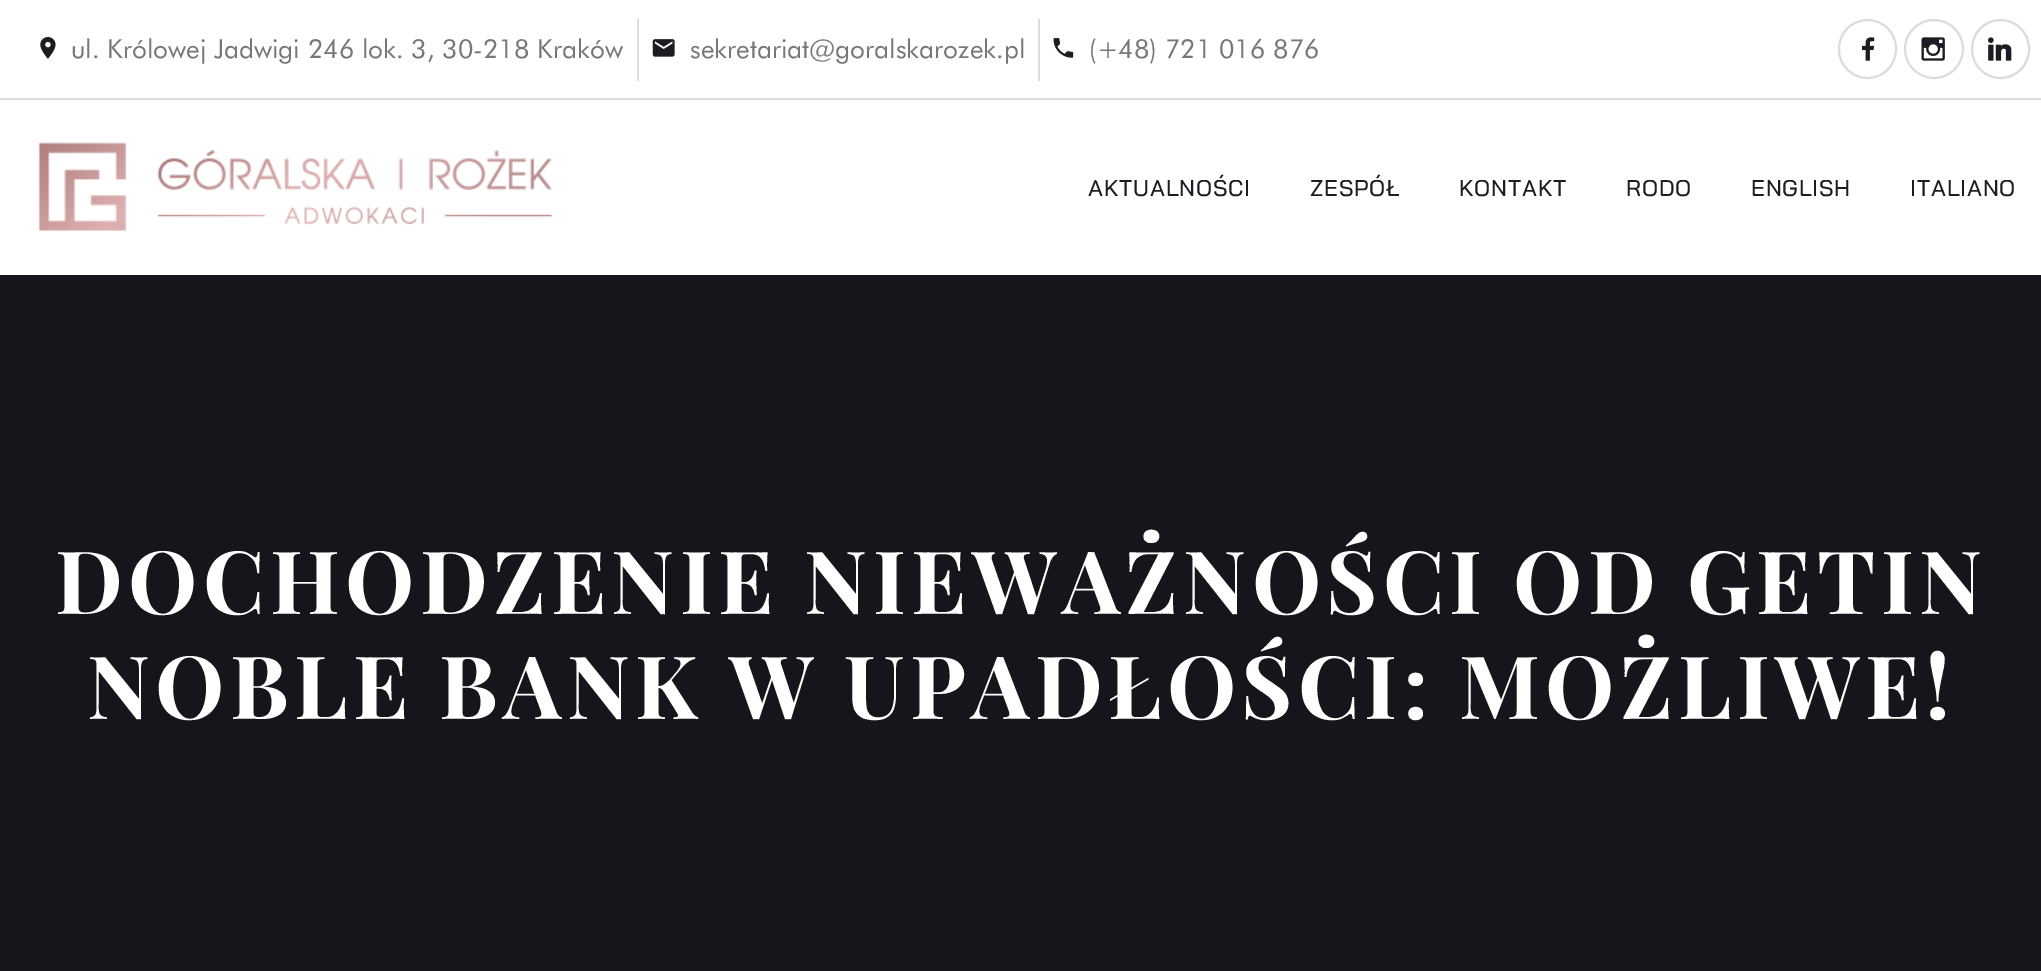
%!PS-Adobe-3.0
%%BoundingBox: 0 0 2041 971
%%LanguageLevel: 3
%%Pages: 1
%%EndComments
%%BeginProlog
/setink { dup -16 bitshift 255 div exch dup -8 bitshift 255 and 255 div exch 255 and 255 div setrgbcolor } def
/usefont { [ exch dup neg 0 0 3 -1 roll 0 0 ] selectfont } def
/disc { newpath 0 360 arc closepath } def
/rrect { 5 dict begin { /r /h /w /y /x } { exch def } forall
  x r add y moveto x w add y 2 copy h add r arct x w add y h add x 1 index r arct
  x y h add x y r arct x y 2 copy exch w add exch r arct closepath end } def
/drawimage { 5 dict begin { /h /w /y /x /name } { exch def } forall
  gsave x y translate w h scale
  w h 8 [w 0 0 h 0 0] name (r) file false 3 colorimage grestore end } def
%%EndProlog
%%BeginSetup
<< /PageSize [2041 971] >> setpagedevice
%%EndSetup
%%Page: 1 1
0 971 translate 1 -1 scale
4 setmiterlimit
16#FFFFFF setink
0 0 2041 971 rectfill
16#DCDCDD setink
0 98 2041 2 rectfill
(img1.raw) 40 37 16 22 drawimage
/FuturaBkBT-Regular 26.25 usefont
16#777777 setink
71 58 moveto (ul. Królowej Jadwigi 246 lok. 3, 30-218 Kraków) show
16#DCDCDD setink
637 19 2 62 rectfill
(img2.raw) 652 39 23 18 drawimage
16#777777 setink
690 58 moveto (sekretariat@goralskarozek.pl) show
16#DCDCDD setink
1038 19 2 62 rectfill
(img3.raw) 1053 38 21 20 drawimage
16#777777 setink
1089 58 moveto (\(+48\) 721 016 876) show
16#DCDCDD setink
2 setlinewidth
1839 20 57 58 28.5 rrect stroke
(img4.raw) 1862 37 13 24 drawimage
1934 49 29 disc stroke
(img5.raw) 1921 37 24 24 drawimage
1972 20 57 58 28.5 rrect stroke
(img6.raw) 1988 37 24 24 drawimage
(img7.raw) 38 142 515 89 drawimage
/BaiJamjuree-Medium 22.75 usefont
16#1C1C23 setink
1088 196 moveto 0.75 0 (AKTUALNOŚCI) ashow
1310 196 moveto 0.75 0 (ZESPÓŁ) ashow
1459 196 moveto 0.75 0 (KONTAKT) ashow
1626 196 moveto 0.75 0 (RODO) ashow
1751 196 moveto 0.75 0 (ENGLISH) ashow
1910 196 moveto 0.75 0 (ITALIANO) ashow
16#15151B setink
0 275 2041 696 rectfill
/PlayfairDisplay-Bold 87.5 usefont
16#FFFFFF setink
55 614 moveto 5.25 0 (DOCHODZENIE NIEWAŻNOŚCI OD GETIN) ashow
87 719 moveto 5.25 0 (NOBLE BANK W UPADŁOŚCI: MOŻLIWE!) ashow
showpage
%%EOF
